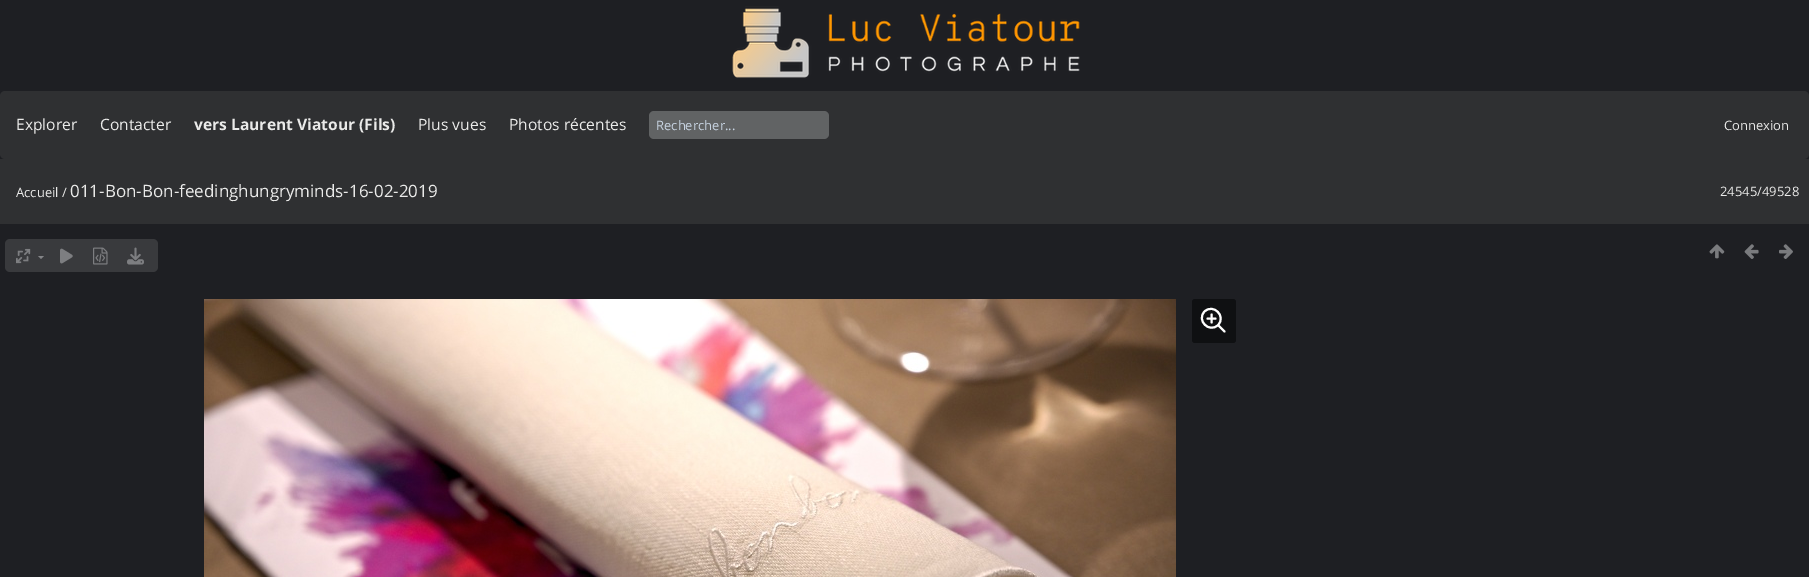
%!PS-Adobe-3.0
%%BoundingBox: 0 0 1809 577
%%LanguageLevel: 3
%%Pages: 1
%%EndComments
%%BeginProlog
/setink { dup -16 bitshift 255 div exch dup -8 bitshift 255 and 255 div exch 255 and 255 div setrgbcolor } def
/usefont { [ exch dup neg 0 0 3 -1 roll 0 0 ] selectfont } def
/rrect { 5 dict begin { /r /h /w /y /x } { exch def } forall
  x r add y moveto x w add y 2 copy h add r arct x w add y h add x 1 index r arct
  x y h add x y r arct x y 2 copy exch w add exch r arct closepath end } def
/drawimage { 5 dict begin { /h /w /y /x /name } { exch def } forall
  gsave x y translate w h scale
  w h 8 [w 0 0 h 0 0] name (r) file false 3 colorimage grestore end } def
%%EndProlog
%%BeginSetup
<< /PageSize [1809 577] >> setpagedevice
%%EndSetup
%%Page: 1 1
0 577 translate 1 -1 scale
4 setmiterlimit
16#1E1F23 setink
0 0 1809 577 rectfill
(img1.raw) 732 6 348 72 drawimage
16#2F3032 setink
0 91 1809 68 5 rrect fill
/OpenSans-Regular 15.6 usefont
16#EAEAE9 setink
16 130 moveto (Explorer) show
100 130 moveto (Contacter) show
/OpenSans-Bold 15.6 usefont
194 130 moveto (vers Laurent Viatour \(Fils\)) show
/OpenSans-Regular 15.6 usefont
418 130 moveto (Plus vues) show
509 130 moveto (Photos récentes) show
16#616364 setink
649 111 180 28 5 rrect fill
/OpenSans-Regular 13 usefont
16#C7D3E1 setink
656 130 moveto (Rechercher...) show
16#EAEAE9 setink
1724 130 moveto (Connexion) show
16#2F3032 setink
0 159 1809 65 rectfill
16#EAEAE9 setink
16 197 moveto (Accueil /) show
/OpenSans-Regular 17 usefont
70 197 moveto (011-Bon-Bon-feedinghungryminds-16-02-2019) show
/OpenSans-Regular 13 usefont
1720 196 moveto (24545/49528) show
16#393A3D setink
5 239 153 33 5 rrect fill
(img2.raw) 16 248 15 16 drawimage
16#848588 setink
38 256 moveto 44 256 lineto 41 259 lineto closepath fill
(img3.raw) 60 248 13 16 drawimage
(img4.raw) 93 247 15 18 drawimage
(img5.raw) 127 247 17 18 drawimage
(img6.raw) 1709 244 16 15 drawimage
(img7.raw) 1744 244 15 15 drawimage
(img8.raw) 1779 244 14 15 drawimage
(img9.raw) 204 299 972 278 drawimage
16#0F1012 setink
1192 299 44 44 3 rrect fill
16#FFFFFF setink
2 setlinewidth
1 setlinecap
1 setlinejoin
1224.5 331.5 moveto 1218 325 lineto 1218 325 moveto 1226.5 316.5 1213.5 303 1204.5 311.5 curveto 1196 320.5 1209.5 333.5 1218 325 curveto closepath 1207.5 318.5 moveto 1215.5 318.5 lineto 1211.5 314.5 moveto 1211.5 322.5 lineto stroke
showpage
%%EOF
